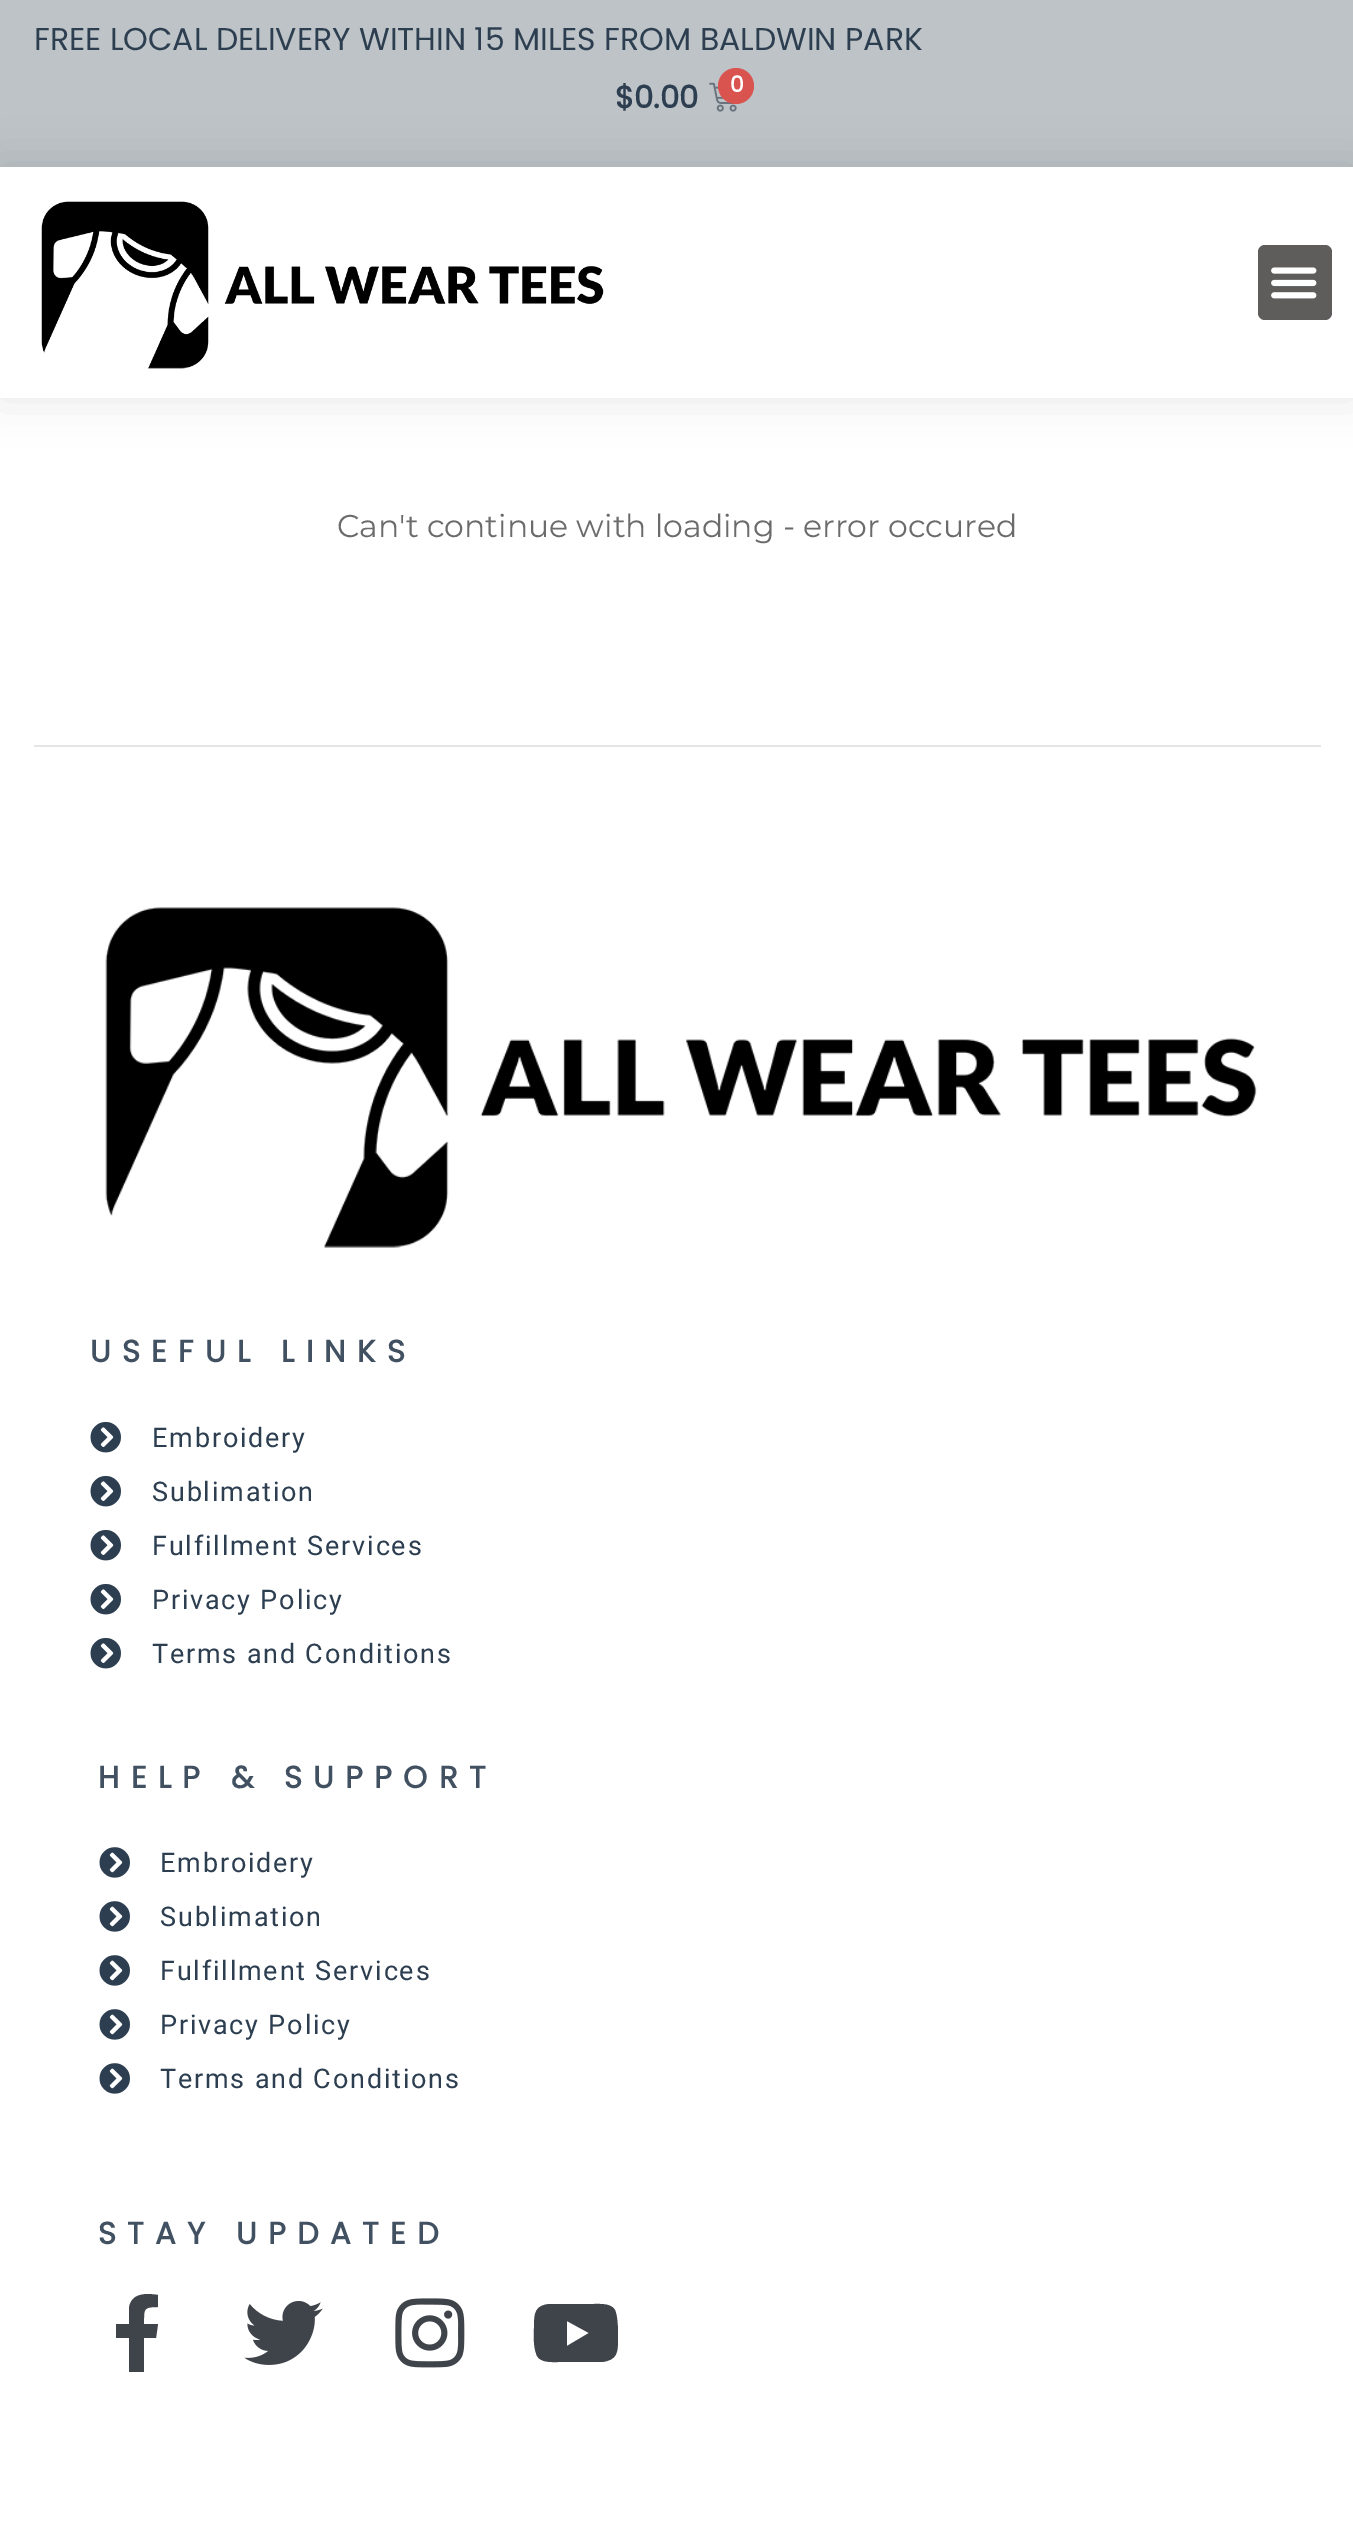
%!PS-Adobe-3.0
%%BoundingBox: 0 0 1353 2521
%%LanguageLevel: 3
%%Pages: 1
%%EndComments
%%BeginProlog
/setink { dup -16 bitshift 255 div exch dup -8 bitshift 255 and 255 div exch 255 and 255 div setrgbcolor } def
/usefont { [ exch dup neg 0 0 3 -1 roll 0 0 ] selectfont } def
/setalpha { dup .setfillconstantalpha .setstrokeconstantalpha } def
/disc { newpath 0 360 arc closepath } def
/rrect { 5 dict begin { /r /h /w /y /x } { exch def } forall
  x r add y moveto x w add y 2 copy h add r arct x w add y h add x 1 index r arct
  x y h add x y r arct x y 2 copy exch w add exch r arct closepath end } def
/softshadow { 12 dict begin { /a /b /q /h /w /y /x } { exch def } forall gsave /was 0 def
  9 -2 -9 { dup b mul 4 div /e exch def 1 sub .425 mul 2.718 exch exp 1 add a .99 .min exch div /now exch def
    1 1 now sub 1 was sub div sub setalpha /was now def
    w h .min e 2 mul add 0 gt { x e sub y e sub w e 2 mul add h e 2 mul add
      q e add b .6 mul add w h .min 2 div e add .min 0 .max rrect fill } if } for grestore end } def
/drawimage { 5 dict begin { /h /w /y /x /name } { exch def } forall
  gsave x y translate w h scale
  w h 8 [w 0 0 h 0 0] name (r) file false 3 colorimage grestore end } def
%%EndProlog
%%BeginSetup
<< /PageSize [1353 2521] /PageUsesTransparency true >> setpagedevice
%%EndSetup
%%Page: 1 1
0 .pushpdf14devicefilter
0 2521 translate 1 -1 scale
4 setmiterlimit
16#FFFFFF setink
0 0 1353 2521 rectfill
16#BDC3C7 setink
0 0 1353 167 rectfill
/Poppins-Regular 31.5 usefont
16#2C3E50 setink
34 50 moveto (FREE LOCAL DELIVERY WITHIN 15 MILES FROM BALDWIN PARK) show
/Poppins-Bold 30.75 usefont
615 108 moveto ($0.00) show
(img1.raw) 709 82 28 30 drawimage
16#D9534F setink
736 86 18 disc fill
/Poppins-Bold 22 usefont
16#FFFFFF setink
730 92 moveto (0) show
gsave
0 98 moveto 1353 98 lineto 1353 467 lineto 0 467 lineto closepath 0 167 moveto 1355 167 lineto 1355 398 lineto 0 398 lineto closepath eoclip newpath
16#000000 setink
0 167 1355 231 0 22.5 0.1 softshadow
grestore
(img2.raw) 41 201 563 168 drawimage
16#5F5C5C setink
1258 245 74 75 7 rrect fill
(img3.raw) 1271 267 46 32 drawimage
/Montserrat-Regular 31.5 usefont
16#6B6B6B setink
337 537 moveto (Can't continue with loading - error occured) show
16#E5E5E5 setink
34 745 1287 2 rectfill
(img4.raw) 105 907 1152 341 drawimage
/Poppins-Bold 30.75 usefont
16#415161 setink
90 1362 moveto 11.25 0 (USEFUL LINKS) ashow
(img5.raw) 90 1421 31 32 drawimage
/Roboto-Regular 27 usefont
16#2C3E50 setink
152 1447 moveto 1.8 0 (Embroidery) ashow
(img5.raw) 90 1475 31 32 drawimage
152 1501 moveto 1.8 0 (Sublimation) ashow
(img5.raw) 90 1529 31 32 drawimage
152 1555 moveto 1.8 0 (Fulfillment Services) ashow
(img5.raw) 90 1583 31 32 drawimage
152 1609 moveto 1.8 0 (Privacy Policy) ashow
(img5.raw) 90 1637 31 32 drawimage
152 1663 moveto 1.8 0 (Terms and Conditions) ashow
/Poppins-Bold 30.75 usefont
16#415161 setink
98 1788 moveto 11.25 0 (HELP & SUPPORT) ashow
(img6.raw) 99 1847 31 31 drawimage
/Roboto-Regular 27 usefont
16#2C3E50 setink
160 1872 moveto 1.8 0 (Embroidery) ashow
(img6.raw) 99 1901 31 31 drawimage
160 1926 moveto 1.8 0 (Sublimation) ashow
(img6.raw) 99 1955 31 31 drawimage
160 1980 moveto 1.8 0 (Fulfillment Services) ashow
(img6.raw) 99 2009 31 31 drawimage
160 2034 moveto 1.8 0 (Privacy Policy) ashow
(img6.raw) 99 2063 31 31 drawimage
160 2088 moveto 1.8 0 (Terms and Conditions) ashow
/Poppins-Bold 30.75 usefont
16#415161 setink
98 2244 moveto 11.25 0 (STAY UPDATED) ashow
16#3F434A setink
156 2338 moveto 144 2338 lineto 144 2372 lineto 129 2372 lineto 129 2338 lineto 116 2338 lineto 116 2324 lineto 129 2324 lineto 129 2308 lineto 131 2293 146 2293 158 2295 curveto 158 2307 lineto 143 2307 144 2309 144 2324 curveto 158 2324 lineto closepath fill
(img7.raw) 244 2301 79 64 drawimage
(img8.raw) 395 2298 70 70 drawimage
616 2313 moveto 618 2321 618 2330 618 2339 curveto 618 2353 617 2360 602 2362 curveto 583 2362 lineto 558 2362 lineto 551 2362 538 2363 536 2353 curveto 533 2345 534 2336 534 2327 curveto 534 2313 535 2305 550 2304 curveto 569 2304 lineto 594 2304 lineto 601 2304 614 2303 616 2313 curveto closepath 567 2346 moveto 589 2333 lineto 567 2321 lineto closepath fill
.poppdf14devicefilter showpage
%%EOF
